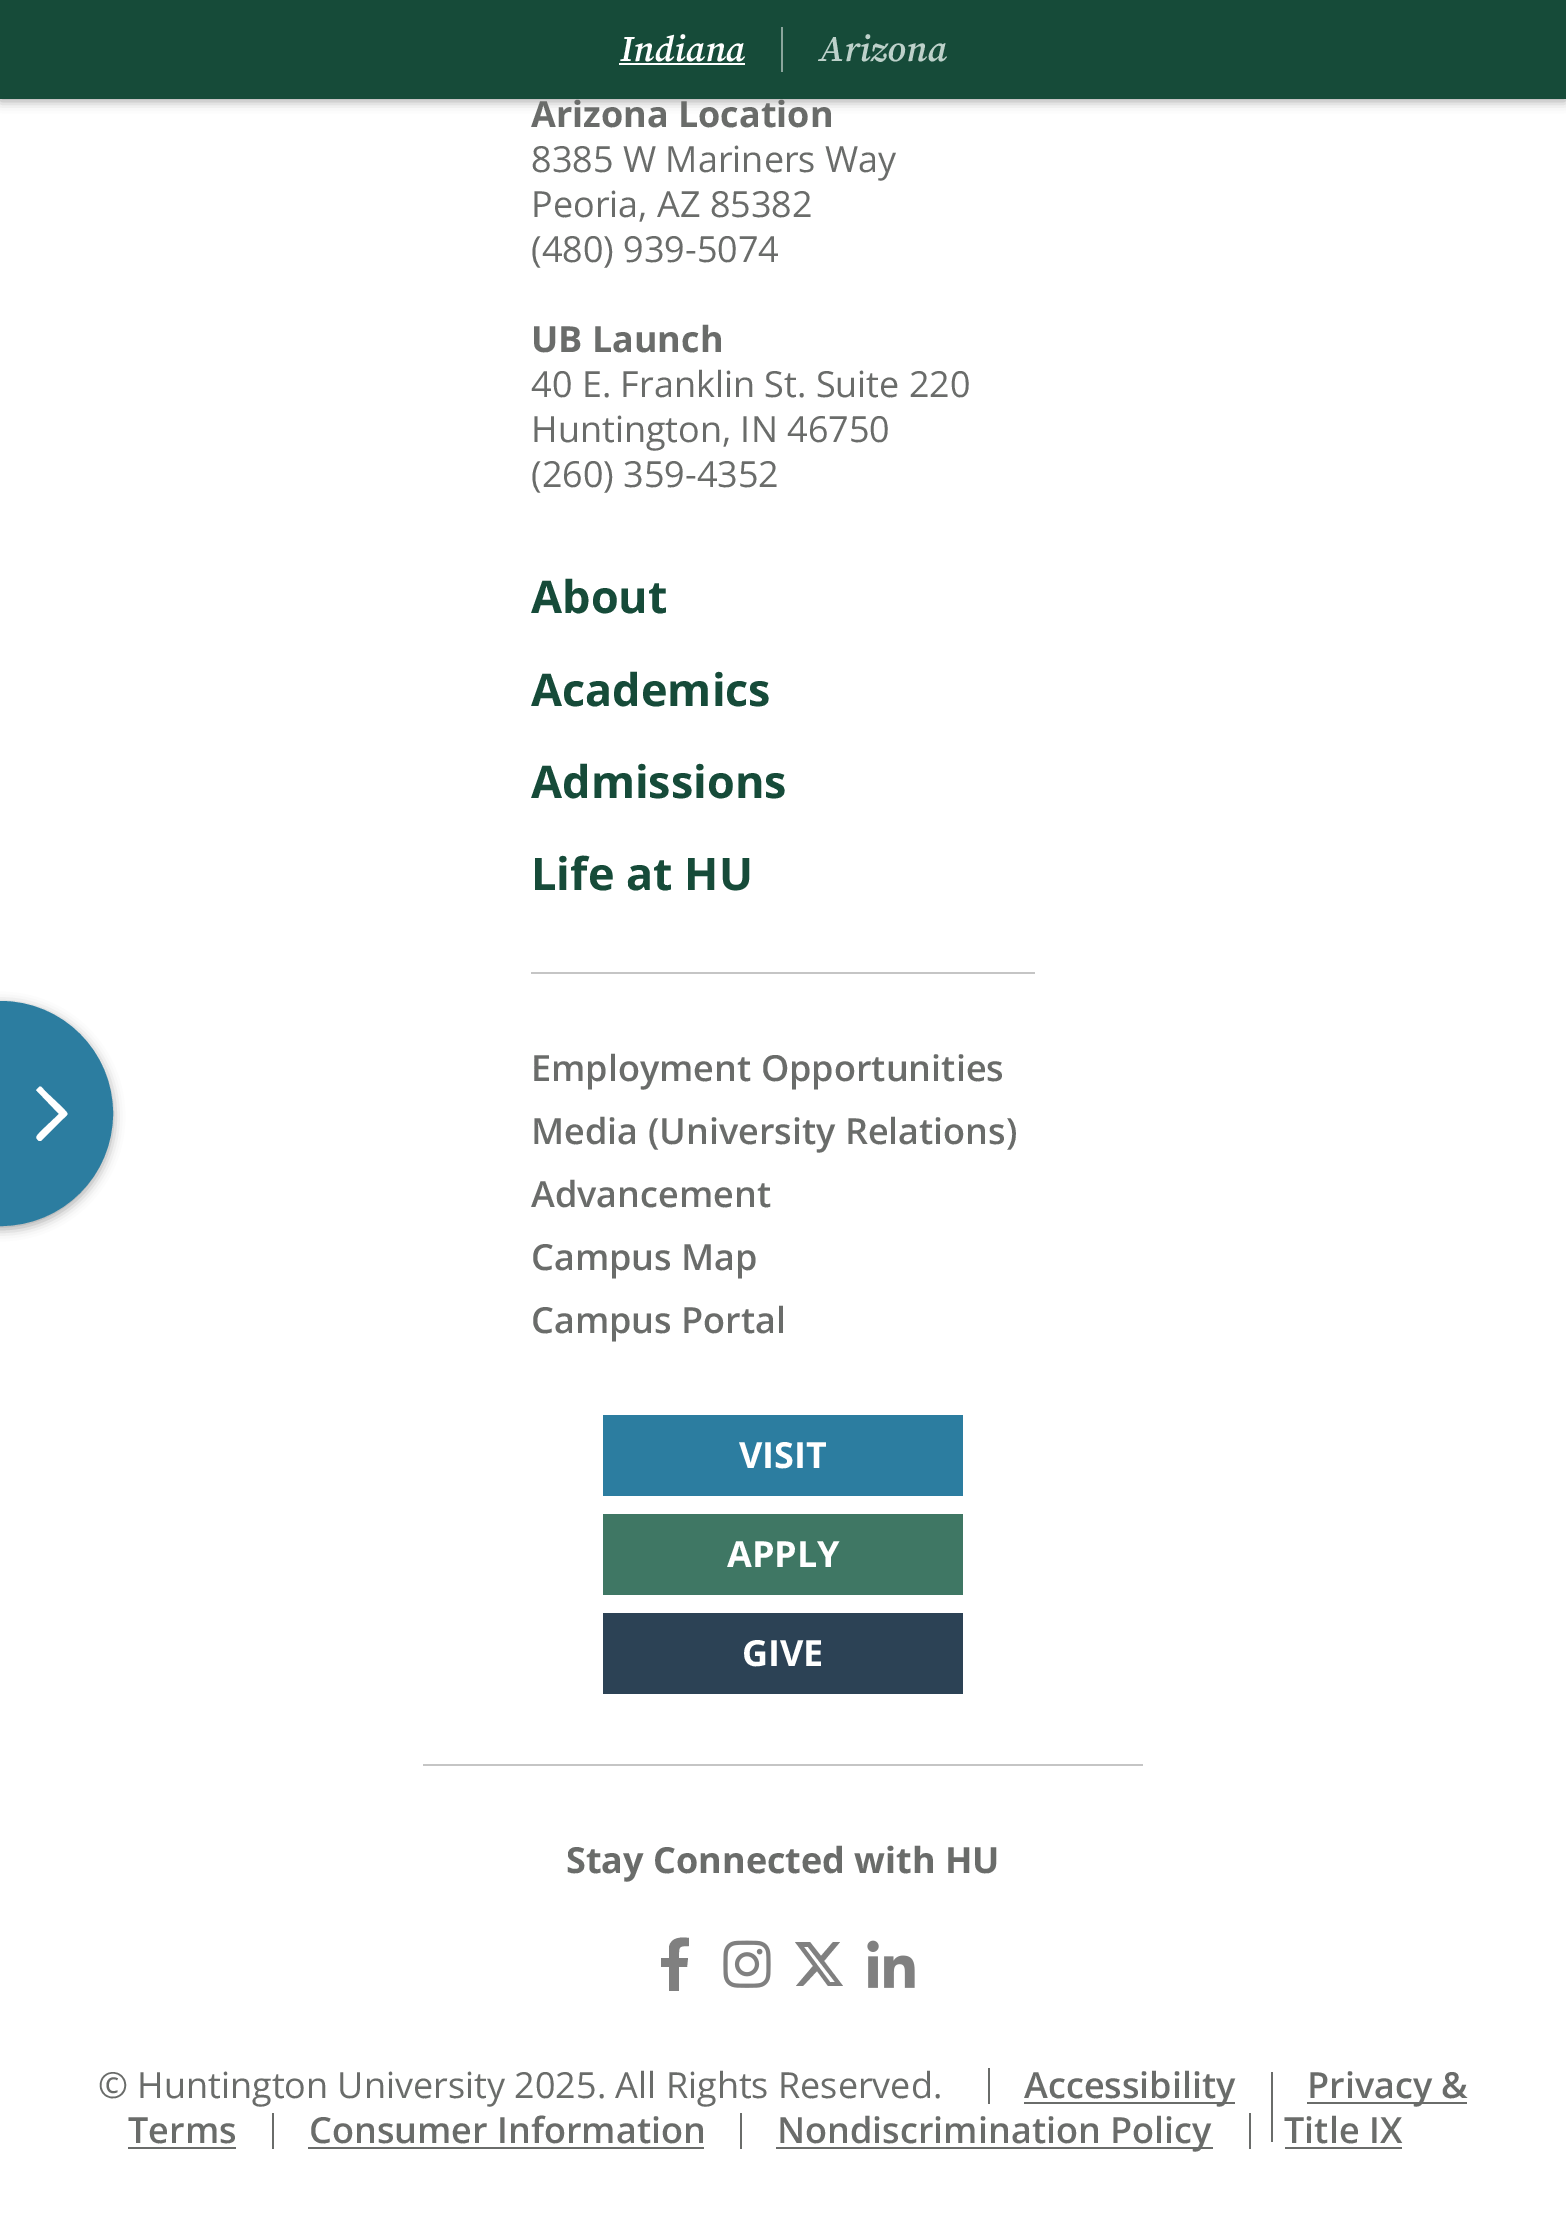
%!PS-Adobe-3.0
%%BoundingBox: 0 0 1566 2225
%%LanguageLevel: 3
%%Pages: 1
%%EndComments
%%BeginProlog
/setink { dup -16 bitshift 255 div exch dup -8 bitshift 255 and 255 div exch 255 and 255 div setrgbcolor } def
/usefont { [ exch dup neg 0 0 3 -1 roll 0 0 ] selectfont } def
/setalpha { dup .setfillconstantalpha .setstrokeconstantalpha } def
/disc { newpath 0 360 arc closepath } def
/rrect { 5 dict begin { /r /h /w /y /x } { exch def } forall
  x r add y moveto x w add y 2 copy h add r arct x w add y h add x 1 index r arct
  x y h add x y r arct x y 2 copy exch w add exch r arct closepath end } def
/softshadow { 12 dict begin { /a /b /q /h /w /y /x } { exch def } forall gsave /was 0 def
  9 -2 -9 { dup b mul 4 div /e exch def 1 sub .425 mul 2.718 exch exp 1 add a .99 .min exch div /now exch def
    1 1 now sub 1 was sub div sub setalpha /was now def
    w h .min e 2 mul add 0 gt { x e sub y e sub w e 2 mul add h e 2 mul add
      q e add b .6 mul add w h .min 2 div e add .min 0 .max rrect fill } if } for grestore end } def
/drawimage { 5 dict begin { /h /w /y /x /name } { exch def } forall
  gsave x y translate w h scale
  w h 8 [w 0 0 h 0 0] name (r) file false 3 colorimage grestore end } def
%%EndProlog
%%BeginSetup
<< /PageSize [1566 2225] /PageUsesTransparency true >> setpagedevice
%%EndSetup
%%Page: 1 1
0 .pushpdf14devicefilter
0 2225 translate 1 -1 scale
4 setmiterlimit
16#FFFFFF setink
0 0 1566 2225 rectfill
16#000000 setink
-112 1004 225 225 112.5 5.5 0.35 softshadow
16#2C7DA0 setink
0.5 1113.5 110 disc gsave fill grestore
5 setlinewidth
stroke
16#FFFFFF setink
39 1087 moveto 37 1089 lineto 36 1090 36 1091 37 1091 curveto 59 1114 lineto 40 1132 lineto 37 1136 34 1137 39 1141 curveto 41 1141 lineto 63 1119 lineto 69 1113 69 1115 63 1108 curveto 45 1091 lineto 43 1089 41 1085 39 1087 curveto closepath fill
16#000000 setink
0 2 1566 99 0 5.5 0.35 softshadow
16#164B39 setink
0 0 1566 99 rectfill
/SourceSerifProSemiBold-SemiBoldItalic 36 usefont
16#FFFFFF setink
620 61 moveto (Indiana) show
619 63 126 2 rectfill
16#8BA59C setink
781 27 2 45 rectfill
16#BDD1CA setink
819 61 moveto (Arizona) show
/OpenSans-Bold 36 usefont
16#6A6C6A setink
531 127 moveto (Arizona Location) show
/OpenSans-Regular 36 usefont
[
    [(8385 W Mariners Way) 531 172]
    [(Peoria, AZ 85382) 531 217]
    [(\(480\) 939-5074) 531 262]
] { aload pop moveto show } forall
/OpenSans-Bold 36 usefont
531 352 moveto (UB Launch) show
/OpenSans-Regular 36 usefont
[
    [(40 E. Franklin St. Suite 220) 531 397]
    [(Huntington, IN 46750) 531 442]
    [(\(260\) 359-4352) 531 487]
] { aload pop moveto show } forall
/OpenSans-Bold 45 usefont
16#164B39 setink
[
    [(About) 531 613]
    [(Academics) 531 706]
    [(Admissions) 531 798]
    [(Life at HU) 531 890]
] { aload pop moveto show } forall
16#C5C5C5 setink
531 972 504 2 rectfill
/OpenSans-SemiBold 36 usefont
16#6A6C6A setink
[
    [(Employment Opportunities) 531 1081]
    [(Media \(University Relations\)) 531 1144]
    [(Advancement) 531 1207]
    [(Campus Map) 531 1270]
    [(Campus Portal) 531 1333]
] { aload pop moveto show } forall
16#2C7DA0 setink
603 1415 360 81 rectfill
/OpenSans-Bold 36 usefont
16#FFFFFF setink
739 1468 moveto (VISIT) show
16#3F7764 setink
603 1514 360 81 rectfill
16#FFFFFF setink
727 1567 moveto (APPLY) show
16#2C4255 setink
603 1613 360 81 rectfill
16#FFFFFF setink
742 1666 moveto (GIVE) show
16#C5C5C5 setink
423 1764 720 2 rectfill
16#6A6C6A setink
566 1873 moveto (Stay Connected with HU) show
16#808080 setink
669 1991 moveto 669 1967 lineto 661 1967 lineto 661 1958 lineto 669 1958 lineto 669 1947 lineto 671 1937 681 1937 689 1938 curveto 689 1946 lineto 678 1946 679 1947 679 1958 curveto 688 1958 lineto 687 1967 lineto 679 1967 lineto 679 1991 lineto fill
(img1.raw) 723 1940 48 48 drawimage
833 1942 moveto 840 1942 lineto 824 1961 lineto 843 1986 lineto 828 1986 lineto 817 1971 lineto 803 1986 lineto 796 1986 lineto 813 1966 lineto 795 1942 lineto 810 1942 lineto 821 1956 lineto closepath 830 1982 moveto 835 1982 lineto 808 1947 lineto 804 1947 lineto closepath fill
(img2.raw) 867 1940 48 48 drawimage
/OpenSans-Regular 36 usefont
16#6A6C6A setink
98 2098 moveto (© Huntington University 2025. All Rights Reserved.) show
988 2068 2 36 rectfill
1024 2102 211 2 rectfill
/OpenSans-SemiBold 36 usefont
1024 2098 moveto (Accessibility) show
128 2143 moveto (Terms) show
[
    [128 2147 108 2 16#6A6C6A]
    [1271 2072 2 70 16#6A6C6A]
    [1307 2102 160 2 16#6A6C6A]
] { aload pop setink rectfill } forall
1307 2098 moveto (Privacy &) show
272 2113 2 36 rectfill
309 2143 moveto (Consumer Information) show
[
    [308 2147 396 2 16#6A6C6A]
    [740 2113 2 36 16#6A6C6A]
    [776 2147 437 2 16#6A6C6A]
] { aload pop setink rectfill } forall
777 2143 moveto (Nondiscrimination Policy) show
1249 2113 2 36 rectfill
1284 2143 moveto (Title IX) show
1285 2147 117 2 rectfill
.poppdf14devicefilter showpage
%%EOF
